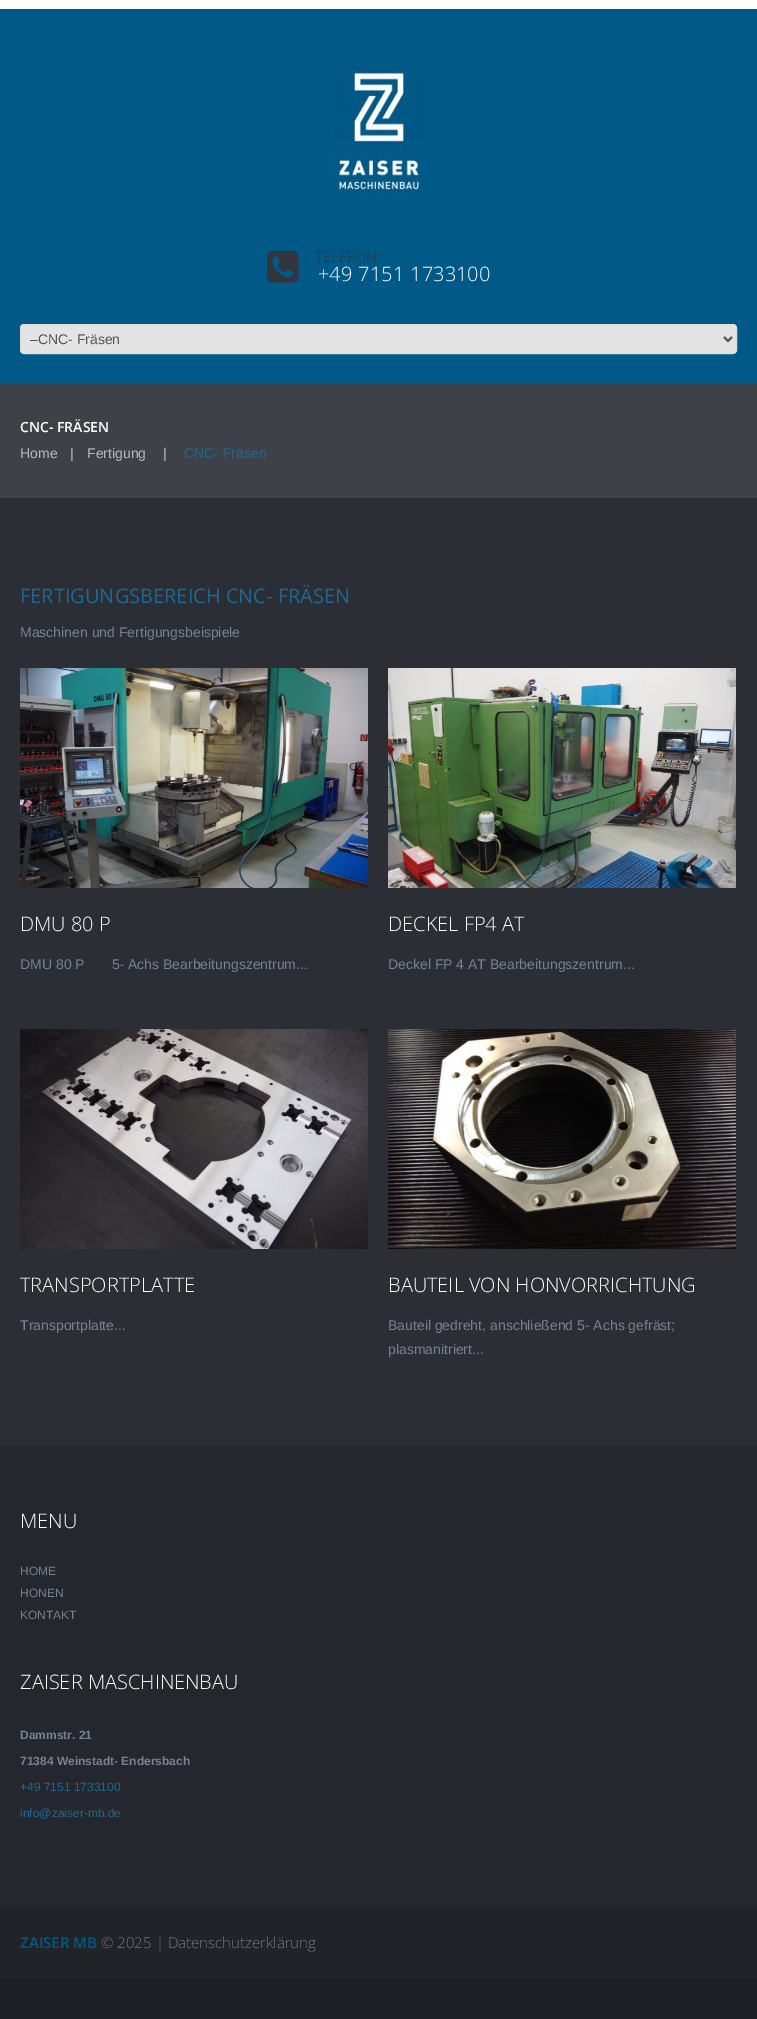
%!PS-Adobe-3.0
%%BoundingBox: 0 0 757 2019
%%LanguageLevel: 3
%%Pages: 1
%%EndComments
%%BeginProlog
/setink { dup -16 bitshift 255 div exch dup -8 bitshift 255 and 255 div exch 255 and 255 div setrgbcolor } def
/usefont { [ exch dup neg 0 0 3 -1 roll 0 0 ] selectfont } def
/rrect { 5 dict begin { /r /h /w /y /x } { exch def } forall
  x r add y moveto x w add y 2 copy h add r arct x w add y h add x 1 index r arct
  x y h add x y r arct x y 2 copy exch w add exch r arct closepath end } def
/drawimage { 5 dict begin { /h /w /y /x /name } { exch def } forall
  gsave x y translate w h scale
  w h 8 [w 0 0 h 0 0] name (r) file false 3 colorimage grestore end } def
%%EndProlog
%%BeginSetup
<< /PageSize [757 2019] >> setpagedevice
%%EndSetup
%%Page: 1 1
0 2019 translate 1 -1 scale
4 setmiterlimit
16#1C1E23 setink
0 0 757 2019 rectfill
16#015987 setink
0 9 757 375 rectfill
16#FFFFFF setink
0 0 757 9 rectfill
(img1.raw) 334 67 90 128 drawimage
/OpenSans-Light 15 usefont
16#31353D setink
315 262 moveto (TELEFON:) show
(img2.raw) 267 250 32 33 drawimage
/OpenSans-Light 20 usefont
16#FFFFFF setink
318 281 moveto 1 0 32 (+49 7151 1733100) widthshow
16#E4E4E4 setink
20.5 324.5 716 29 3.5 rrect gsave fill grestore
16#DDDDDD setink
stroke
16#555555 setink
2 setlinewidth
724 337 moveto 728 341 lineto 732 337 lineto stroke
/LiberationSans-Regular 14 usefont
30 344 moveto (–CNC- Fräsen) show
[
    [0 498 757 949 16#2B2E35]
    [0 384 20 114 16#3F4148]
    [20 384 737 114 16#3F4148]
] { aload pop setink rectfill } forall
/OpenSans-SemiBold 14 usefont
16#FFFFFF setink
20 432 moveto (CNC- FRÄSEN) show
/LiberationSans-Regular 14 usefont
16#BABABA setink
[
    [(Home) 20 458]
    [(|) 70 458]
    [(Fertigung) 87 458]
    [(|) 163 458]
] { aload pop moveto show } forall
16#1B6A93 setink
184 458 moveto (CNC- Fräsen) show
/OpenSans-Regular 20 usefont
20 603 moveto (FERTIGUNGSBEREICH CNC- FRÄSEN) show
/LiberationSans-Regular 14 usefont
16#79808F setink
20 637 moveto (Maschinen und Fertigungsbeispiele) show
(img3.raw) 20 668 348 220 drawimage
/OpenSans-Light 20 usefont
16#FFFFFF setink
20 931 moveto (DMU 80 P) show
/LiberationSans-Regular 14 usefont
16#79808F setink
20 969 moveto (DMU 80 P       5- Achs Bearbeitungszentrum...) show
(img4.raw) 388 668 348 220 drawimage
/OpenSans-Light 20 usefont
16#FFFFFF setink
388 931 moveto (DECKEL FP4 AT) show
/LiberationSans-Regular 14 usefont
16#79808F setink
388 969 moveto (Deckel FP 4 AT Bearbeitungszentrum...) show
(img5.raw) 20 1029 348 220 drawimage
/OpenSans-Light 20 usefont
16#FFFFFF setink
20 1292 moveto (TRANSPORTPLATTE) show
/LiberationSans-Regular 14 usefont
16#79808F setink
20 1330 moveto (Transportplatte...) show
(img6.raw) 388 1029 348 220 drawimage
/OpenSans-Light 20 usefont
16#FFFFFF setink
388 1292 moveto (BAUTEIL VON HONVORRICHTUNG) show
/LiberationSans-Regular 14 usefont
16#79808F setink
388 1330 moveto (Bauteil gedreht, anschließend 5- Achs gefräst;) show
388 1354 moveto (plasmanitriert...) show
16#24272D setink
0 1447 757 459 rectfill
/OpenSans-Light 20 usefont
16#FFFFFF setink
20 1528 moveto (MENU) show
/LiberationSans-Regular 12 usefont
16#79808F setink
[
    [(HOME) 20 1575]
    [(HONEN) 20 1597]
    [(KONTAKT) 20 1619]
] { aload pop moveto show } forall
/OpenSans-Light 20 usefont
16#FFFFFF setink
20 1689 moveto (ZAISER MASCHINENBAU) show
/LiberationSans-Bold 12 usefont
16#79808F setink
20 1739 moveto (Dammstr. 21) show
20 1765 moveto (71384 Weinstadt- Endersbach) show
/LiberationSans-Regular 12 usefont
16#1B6A93 setink
20 1791 moveto (+49 7151 1733100) show
20 1817 moveto (info@zaiser-mb.de) show
16#202328 setink
0 1906 757 73 rectfill
/OpenSans-SemiBold 15 usefont
16#015987 setink
20 1948 moveto (ZAISER MB) show
/OpenSans-Light 15 usefont
16#727685 setink
101 1948 moveto (© 2025 | Datenschutzerklärung) show
showpage
%%EOF
